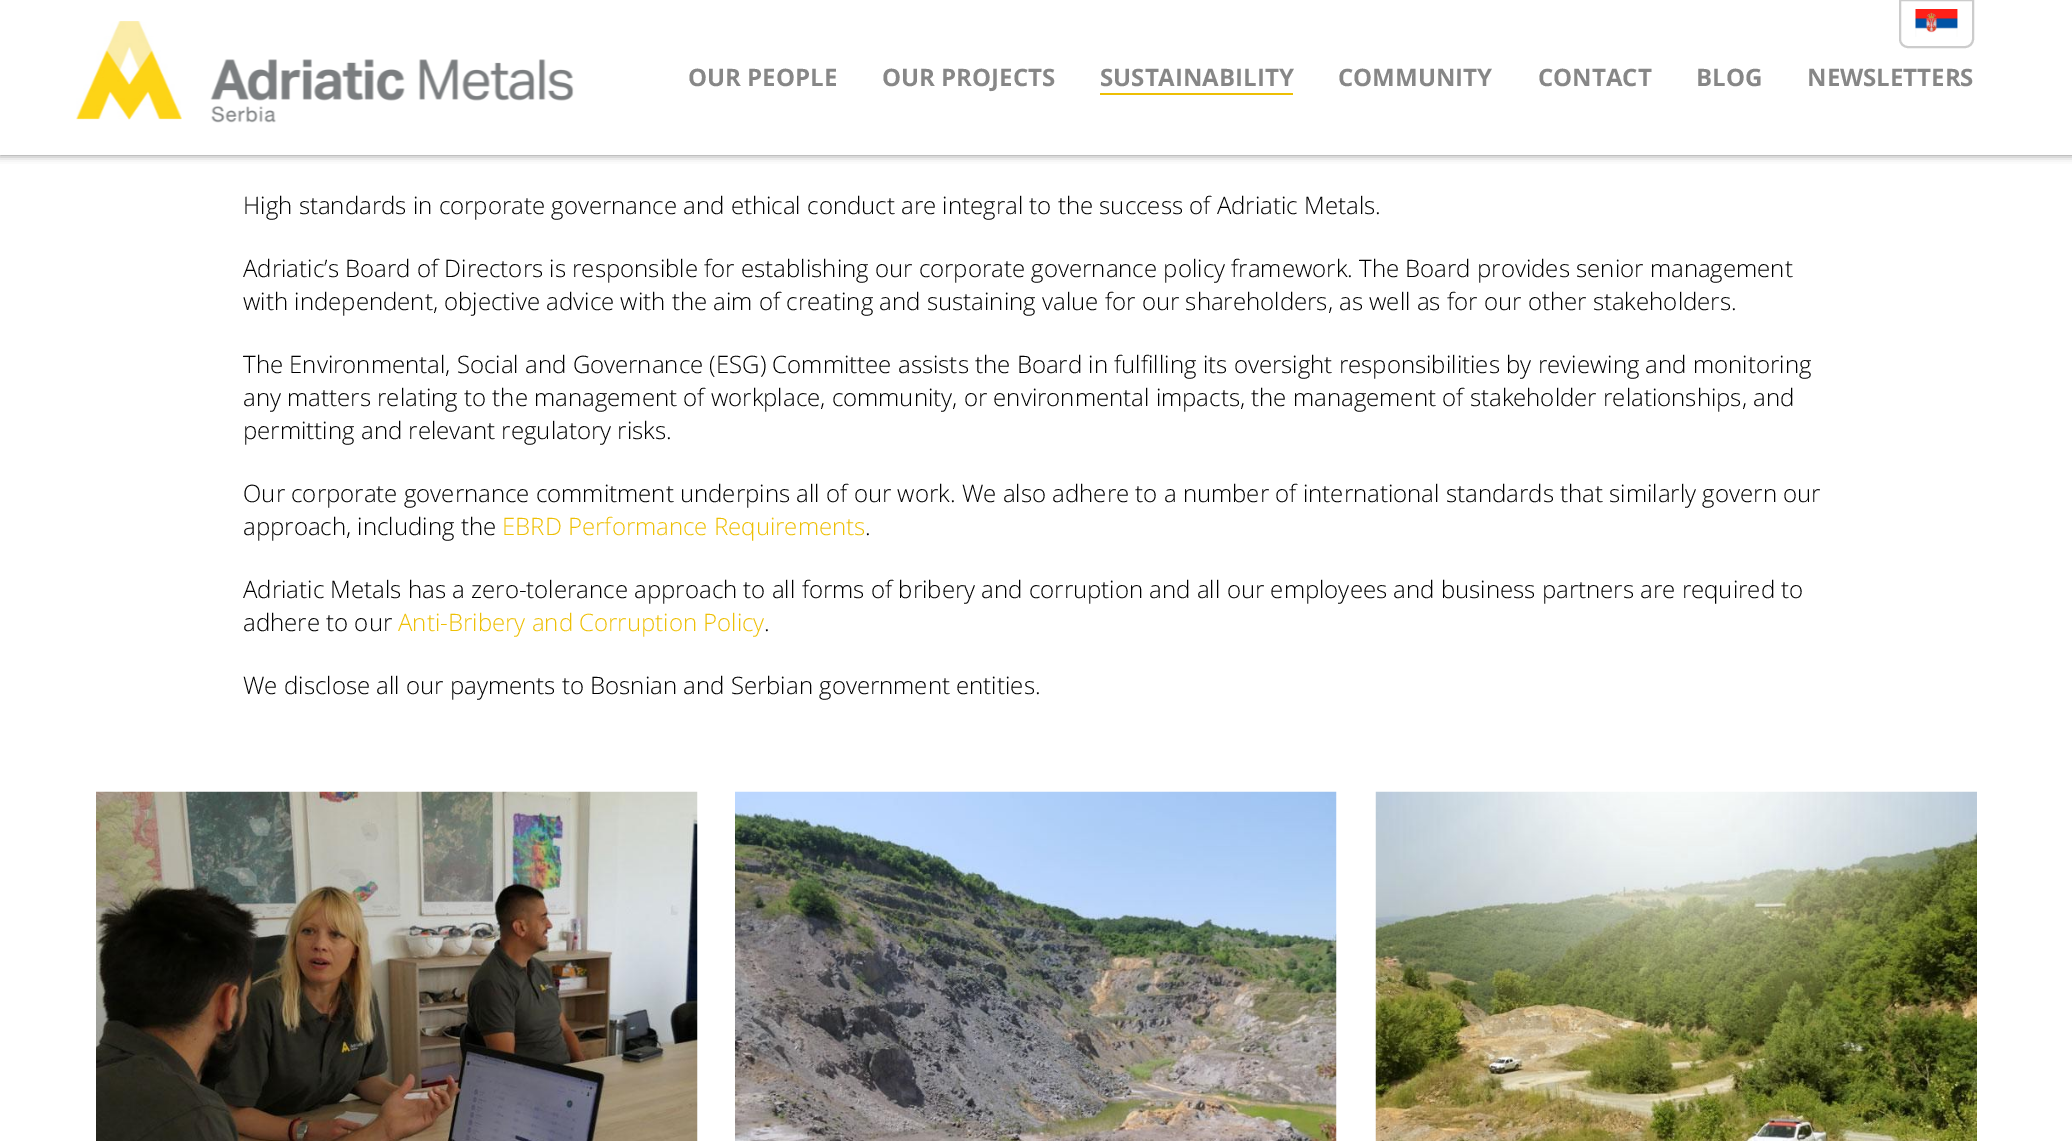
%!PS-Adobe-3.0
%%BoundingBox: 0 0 2072 1141
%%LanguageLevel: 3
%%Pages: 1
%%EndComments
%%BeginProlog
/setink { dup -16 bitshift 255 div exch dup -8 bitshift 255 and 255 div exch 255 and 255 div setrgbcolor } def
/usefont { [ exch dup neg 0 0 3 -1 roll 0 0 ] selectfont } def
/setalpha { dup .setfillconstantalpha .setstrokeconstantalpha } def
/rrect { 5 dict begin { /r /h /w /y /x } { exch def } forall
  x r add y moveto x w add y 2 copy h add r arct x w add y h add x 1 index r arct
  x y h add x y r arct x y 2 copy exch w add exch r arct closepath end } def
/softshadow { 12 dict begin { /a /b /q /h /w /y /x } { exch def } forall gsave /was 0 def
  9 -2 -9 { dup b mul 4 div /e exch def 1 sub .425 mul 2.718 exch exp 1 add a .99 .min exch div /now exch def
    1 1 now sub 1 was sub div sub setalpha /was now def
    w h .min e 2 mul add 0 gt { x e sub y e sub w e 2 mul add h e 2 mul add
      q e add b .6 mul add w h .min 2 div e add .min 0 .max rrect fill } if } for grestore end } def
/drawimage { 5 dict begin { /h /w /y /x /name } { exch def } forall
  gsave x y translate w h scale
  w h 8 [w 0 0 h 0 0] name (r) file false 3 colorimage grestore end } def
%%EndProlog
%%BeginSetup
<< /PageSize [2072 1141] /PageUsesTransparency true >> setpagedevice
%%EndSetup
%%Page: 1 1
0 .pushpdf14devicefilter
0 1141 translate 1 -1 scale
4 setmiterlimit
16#FFFFFF setink
0 0 2072 1141 rectfill
16#000000 setink
0 0 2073 155 0 4 0.5 softshadow
16#FFFFFF setink
0 0 2072 155 rectfill
(img1.raw) 76 21 106 99 drawimage
(img2.raw) 210 59 364 64 drawimage
16#CCCCCC setink
2 setlinewidth
1900 0 moveto 1973 0 lineto 1973 39 lineto 1973 43.5 1969.5 47 1965 47 curveto 1908 47 lineto 1903.5 47 1900 43.5 1900 39 curveto closepath stroke
(img3.raw) 1915 9 43 28 drawimage
/OpenSans-Bold 24 usefont
16#878787 setink
[
    [(OUR PEOPLE) 688 86]
    [(OUR PROJECTS) 882 86]
    [(SUSTAINABILITY) 1100 86]
] { aload pop moveto show } forall
16#EEBF04 setink
1100 93 193 2 rectfill
16#878787 setink
[
    [(COMMUNITY) 1338 86]
    [(CONTACT) 1538 86]
    [(BLOG) 1696 86]
    [(NEWSLETTERS) 1807 86]
] { aload pop moveto show } forall
/OpenSans-Light 24 usefont
16#000000 setink
[
    [(High standards in corporate governance and ethical conduct are integral to the success of Adriatic Metals.) 243 214]
    [(Adriatic’s Board of Directors is responsible for establishing our corporate governance policy framework. The Board provides senior management) 243 277]
    [(with independent, objective advice with the aim of creating and sustaining value for our shareholders, as well as for our other stakeholders.) 243 310]
    [(The Environmental, Social and Governance \(ESG\) Committee assists the Board in fulfilling its oversight responsibilities by reviewing and monitoring) 243 373]
    [(any matters relating to the management of workplace, community, or environmental impacts, the management of stakeholder relationships, and) 243 406]
    [(permitting and relevant regulatory risks.) 243 439]
    [(Our corporate governance commitment underpins all of our work. We also adhere to a number of international standards that similarly govern our) 243 502]
    [(approach, including the) 243 535]
] { aload pop moveto show } forall
16#EEBF04 setink
502 535 moveto (EBRD Performance Requirements) show
16#000000 setink
[
    [(.) 865 535]
    [(Adriatic Metals has a zero-tolerance approach to all forms of bribery and corruption and all our employees and business partners are required to) 243 598]
    [(adhere to our) 243 631]
] { aload pop moveto show } forall
16#EEBF04 setink
398 631 moveto (Anti-Bribery and Corruption Policy) show
16#000000 setink
764 631 moveto (.) show
243 694 moveto (We disclose all our payments to Bosnian and Serbian government entities.) show
(img4.raw) 96 791 602 350 drawimage
(img5.raw) 735 791 602 350 drawimage
(img6.raw) 1375 791 602 350 drawimage
.poppdf14devicefilter showpage
%%EOF
